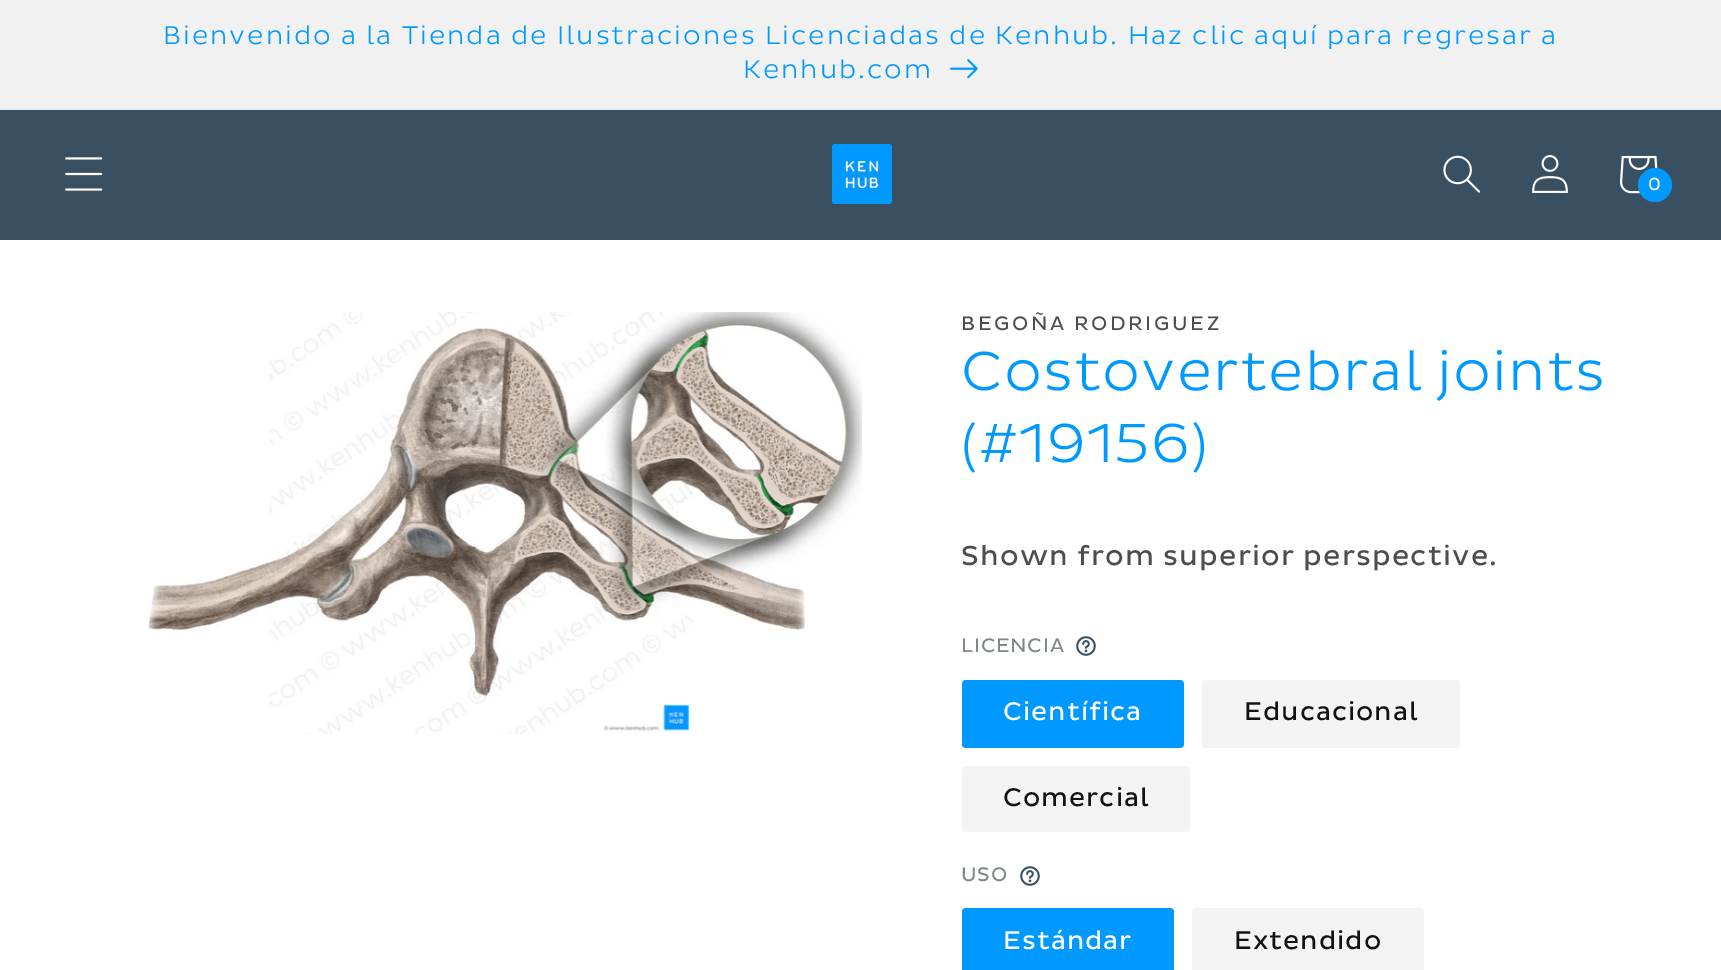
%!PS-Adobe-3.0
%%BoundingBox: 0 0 1721 970
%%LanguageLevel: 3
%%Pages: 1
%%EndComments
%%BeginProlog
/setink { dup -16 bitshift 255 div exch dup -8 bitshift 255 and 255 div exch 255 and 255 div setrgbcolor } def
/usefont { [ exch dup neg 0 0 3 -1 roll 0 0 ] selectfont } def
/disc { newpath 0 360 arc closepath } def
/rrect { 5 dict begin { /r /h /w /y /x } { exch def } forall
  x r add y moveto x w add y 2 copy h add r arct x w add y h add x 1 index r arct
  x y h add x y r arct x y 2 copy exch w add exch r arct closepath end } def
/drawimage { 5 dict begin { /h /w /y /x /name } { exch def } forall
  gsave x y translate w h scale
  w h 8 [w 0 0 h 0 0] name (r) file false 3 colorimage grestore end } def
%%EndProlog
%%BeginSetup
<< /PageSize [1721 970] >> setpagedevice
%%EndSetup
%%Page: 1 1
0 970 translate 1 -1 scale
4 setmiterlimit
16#FFFFFF setink
0 0 1721 970 rectfill
16#ECECEC setink
0 108 1721 2 rectfill
16#F1F1F1 setink
0 0 1721 108 rectfill
/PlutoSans-Light 26 usefont
16#0099FF setink
163 44 moveto 2 0 (Bienvenido a la Tienda de Ilustraciones Licenciadas de Kenhub. Haz clic aquí para regresar a) ashow
743 78 moveto 2 0 (Kenhub.com) ashow
(img1.raw) 950 59 28 20 drawimage
16#395062 setink
0 110 1721 130 rectfill
(img2.raw) 65 157 38 34 drawimage
(img3.raw) 832 144 60 60 drawimage
(img4.raw) 1443 155 37 38 drawimage
(img5.raw) 1532 155 36 38 drawimage
(img6.raw) 1620 155 38 39 drawimage
16#0099FF setink
1655 185 17 disc fill
/PlutoSans-Regular 18 usefont
16#FFFFFF setink
1648 190 moveto 1.2 0 (0) ashow
(img7.raw) 148 312 714 422 drawimage
/PlutoSans-Regular 20 usefont
16#4D4D4D setink
961 330 moveto 2.6 0 (BEGOÑA RODRIGUEZ) ashow
/PlutoSans-Light 56 usefont
16#0099FF setink
961 390 moveto 1.2 0 (Costovertebral joints) ashow
961 462 moveto 1.2 0 (\(#19156\)) ashow
/PlutoSans-Regular 28 usefont
16#4D4D4D setink
961 565 moveto 1.2 0 (Shown from superior perspective.) ashow
/PlutoSans-Regular 20 usefont
16#808788 setink
961 652 moveto 0.75 0 (LICENCIA) ashow
(img8.raw) 1076 636 20 20 drawimage
16#0099FF setink
962 680 222 68 4 rrect fill
/PlutoSans-Regular 26 usefont
16#FFFFFF setink
1003 720 moveto 1 0 (Científica) ashow
16#F3F3F3 setink
1202 680 258 68 4 rrect fill
16#121212 setink
1244 720 moveto 1 0 (Educacional) ashow
16#F3F3F3 setink
962 766 228 66 4 rrect fill
16#121212 setink
1003 806 moveto 1 0 (Comercial) ashow
/PlutoSans-Regular 20 usefont
16#808788 setink
961 881 moveto 0.75 0 (USO) ashow
(img8.raw) 1020 866 20 20 drawimage
16#0099FF setink
962 908 212 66 4 rrect fill
/PlutoSans-Regular 26 usefont
16#FFFFFF setink
1003 949 moveto 1 0 (Estándar) ashow
16#F3F3F3 setink
1192 908 232 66 4 rrect fill
16#121212 setink
1234 949 moveto 1 0 (Extendido) ashow
showpage
%%EOF
